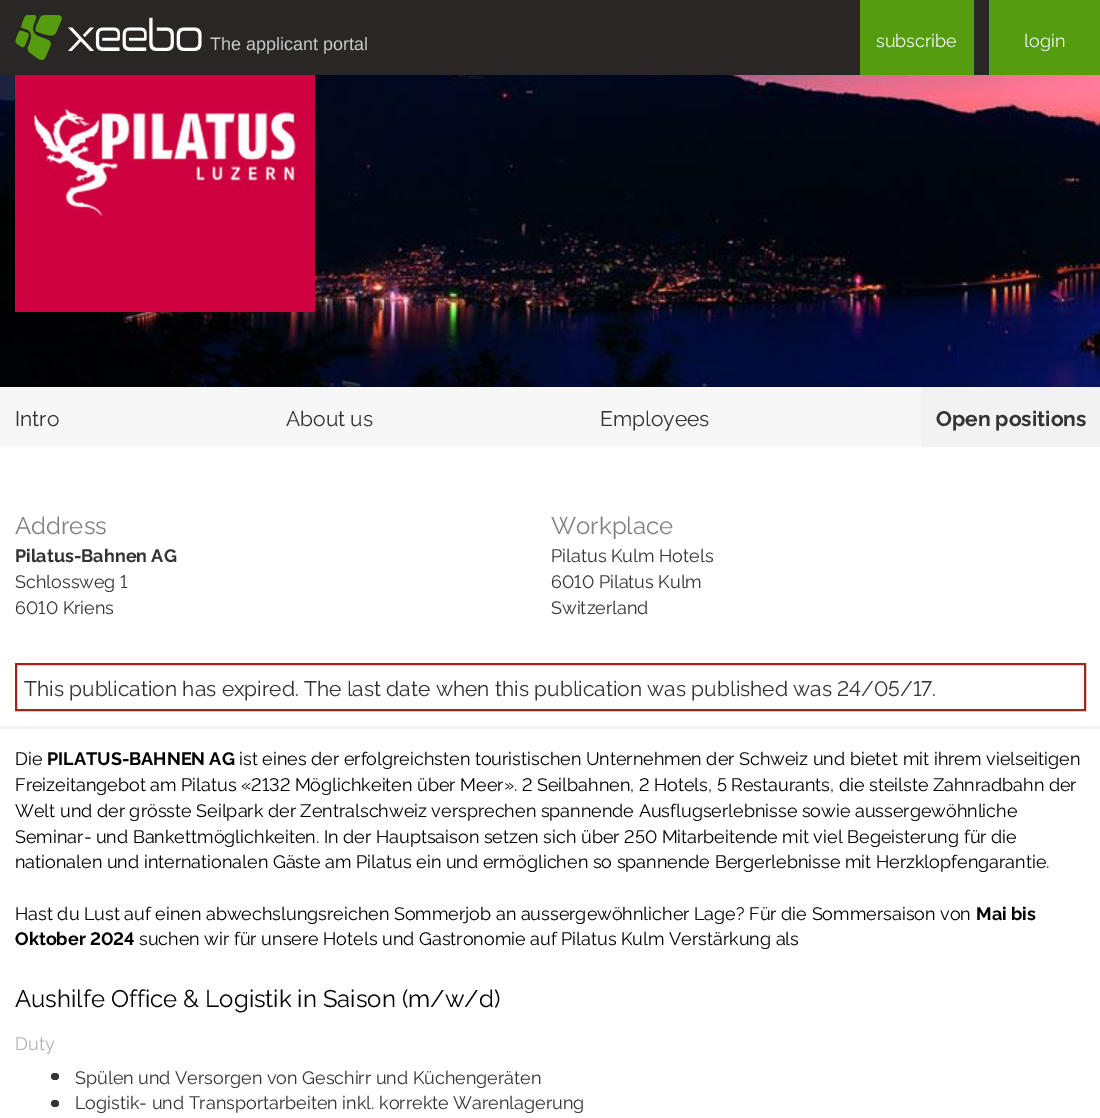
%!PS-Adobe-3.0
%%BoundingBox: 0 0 1100 1118
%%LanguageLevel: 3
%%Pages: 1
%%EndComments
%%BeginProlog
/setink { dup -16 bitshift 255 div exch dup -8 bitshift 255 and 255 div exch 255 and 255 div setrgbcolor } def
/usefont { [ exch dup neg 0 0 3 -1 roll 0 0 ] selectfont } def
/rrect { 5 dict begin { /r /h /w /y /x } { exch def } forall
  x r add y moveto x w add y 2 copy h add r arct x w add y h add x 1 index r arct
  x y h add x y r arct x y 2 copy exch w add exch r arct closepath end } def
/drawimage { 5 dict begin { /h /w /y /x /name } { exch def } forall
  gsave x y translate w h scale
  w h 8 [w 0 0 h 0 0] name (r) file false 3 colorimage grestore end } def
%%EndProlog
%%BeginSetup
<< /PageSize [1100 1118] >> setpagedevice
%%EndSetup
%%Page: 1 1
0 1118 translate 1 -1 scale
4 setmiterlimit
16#FFFFFF setink
0 0 1100 1118 rectfill
16#2A2626 setink
0 0 989 75 rectfill
(img1.raw) 15 15 47 45 drawimage
(img2.raw) 68 17 134 34 drawimage
/LiberationSans-Regular 18 usefont
16#CCCCCC setink
210 50 moveto (The applicant portal) show
16#559C0E setink
860 0 114 75 rectfill
/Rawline-Regular 18 usefont
16#F7F7F7 setink
876 47 moveto (subscribe) show
16#559C0E setink
989 0 111 75 rectfill
16#F7F7F7 setink
1024 47 moveto (login) show
(img3.raw) 0 75 1100 312 drawimage
(img4.raw) 15 75 300 237 drawimage
0 387 921 60 rectfill
/Rawline-Regular 21 usefont
16#333333 setink
[
    [(Intro) 15 426]
    [(About us) 286 426]
    [(Employees) 600 426]
] { aload pop moveto show } forall
16#F2F2F2 setink
921 387 179 60 rectfill
/Rawline-Bold 21 usefont
16#333333 setink
936 426 moveto (Open positions) show
/Rawline-Regular 24 usefont
16#827F7F setink
15 534 moveto (Address) show
/Rawline-Bold 18 usefont
16#333333 setink
15 562 moveto (Pilatus-Bahnen AG) show
/Rawline-Regular 18 usefont
15 588 moveto (Schlossweg 1) show
15 614 moveto (6010 Kriens) show
/Rawline-Regular 24 usefont
16#827F7F setink
551 534 moveto (Workplace) show
/Rawline-Regular 18 usefont
16#333333 setink
[
    [(Pilatus Kulm Hotels) 551 562]
    [(6010 Pilatus Kulm) 551 588]
    [(Switzerland) 551 614]
] { aload pop moveto show } forall
16#9D261D setink
2 setlinewidth
16 664 1069 46 rectstroke
/Rawline-Regular 21 usefont
16#333333 setink
24 696 moveto (This publication has expired. The last date when this publication was published was 24/05/17.) show
16#F2F2F2 setink
0 726 1100 3 rectfill
/Rawline-Regular 18 usefont
16#000000 setink
15 765 moveto (Die) show
/Rawline-Bold 18 usefont
47 765 moveto (PILATUS-BAHNEN AG) show
/Rawline-Regular 18 usefont
[
    [(ist eines der erfolgreichsten touristischen Unternehmen der Schweiz und bietet mit ihrem vielseitigen) 239 765]
    [(Freizeitangebot am Pilatus «2132 Möglichkeiten über Meer». 2 Seilbahnen, 2 Hotels, 5 Restaurants, die steilste Zahnradbahn der) 15 791]
    [(Welt und der grösste Seilpark der Zentralschweiz versprechen spannende Ausflugserlebnisse sowie aussergewöhnliche) 15 817]
    [(Seminar- und Bankettmöglichkeiten. In der Hauptsaison setzen sich über 250 Mitarbeitende mit viel Begeisterung für die) 15 843]
    [(nationalen und internationalen Gäste am Pilatus ein und ermöglichen so spannende Bergerlebnisse mit Herzklopfengarantie.) 15 868]
    [(Hast du Lust auf einen abwechslungsreichen Sommerjob an aussergewöhnlicher Lage? Für die Sommersaison von) 15 920]
] { aload pop moveto show } forall
/Rawline-Bold 18 usefont
976 920 moveto (Mai bis) show
15 945 moveto (Oktober 2024) show
/Rawline-Regular 18 usefont
139 945 moveto (suchen wir für unsere Hotels und Gastronomie auf Pilatus Kulm Verstärkung als) show
/Rawline-Regular 24 usefont
15 1007 moveto (Aushilfe Office & Logistik in Saison \(m/w/d\)) show
/Rawline-Regular 18 usefont
16#B4B2B2 setink
15 1050 moveto (Duty) show
16#333333 setink
51 1073 8 7 3.5 rrect fill
75 1084 moveto (Spülen und Versorgen von Geschirr und Küchengeräten) show
51 1100 8 7 3.5 rrect fill
75 1109 moveto (Logistik- und Transportarbeiten inkl. korrekte Warenlagerung) show
showpage
%%EOF
